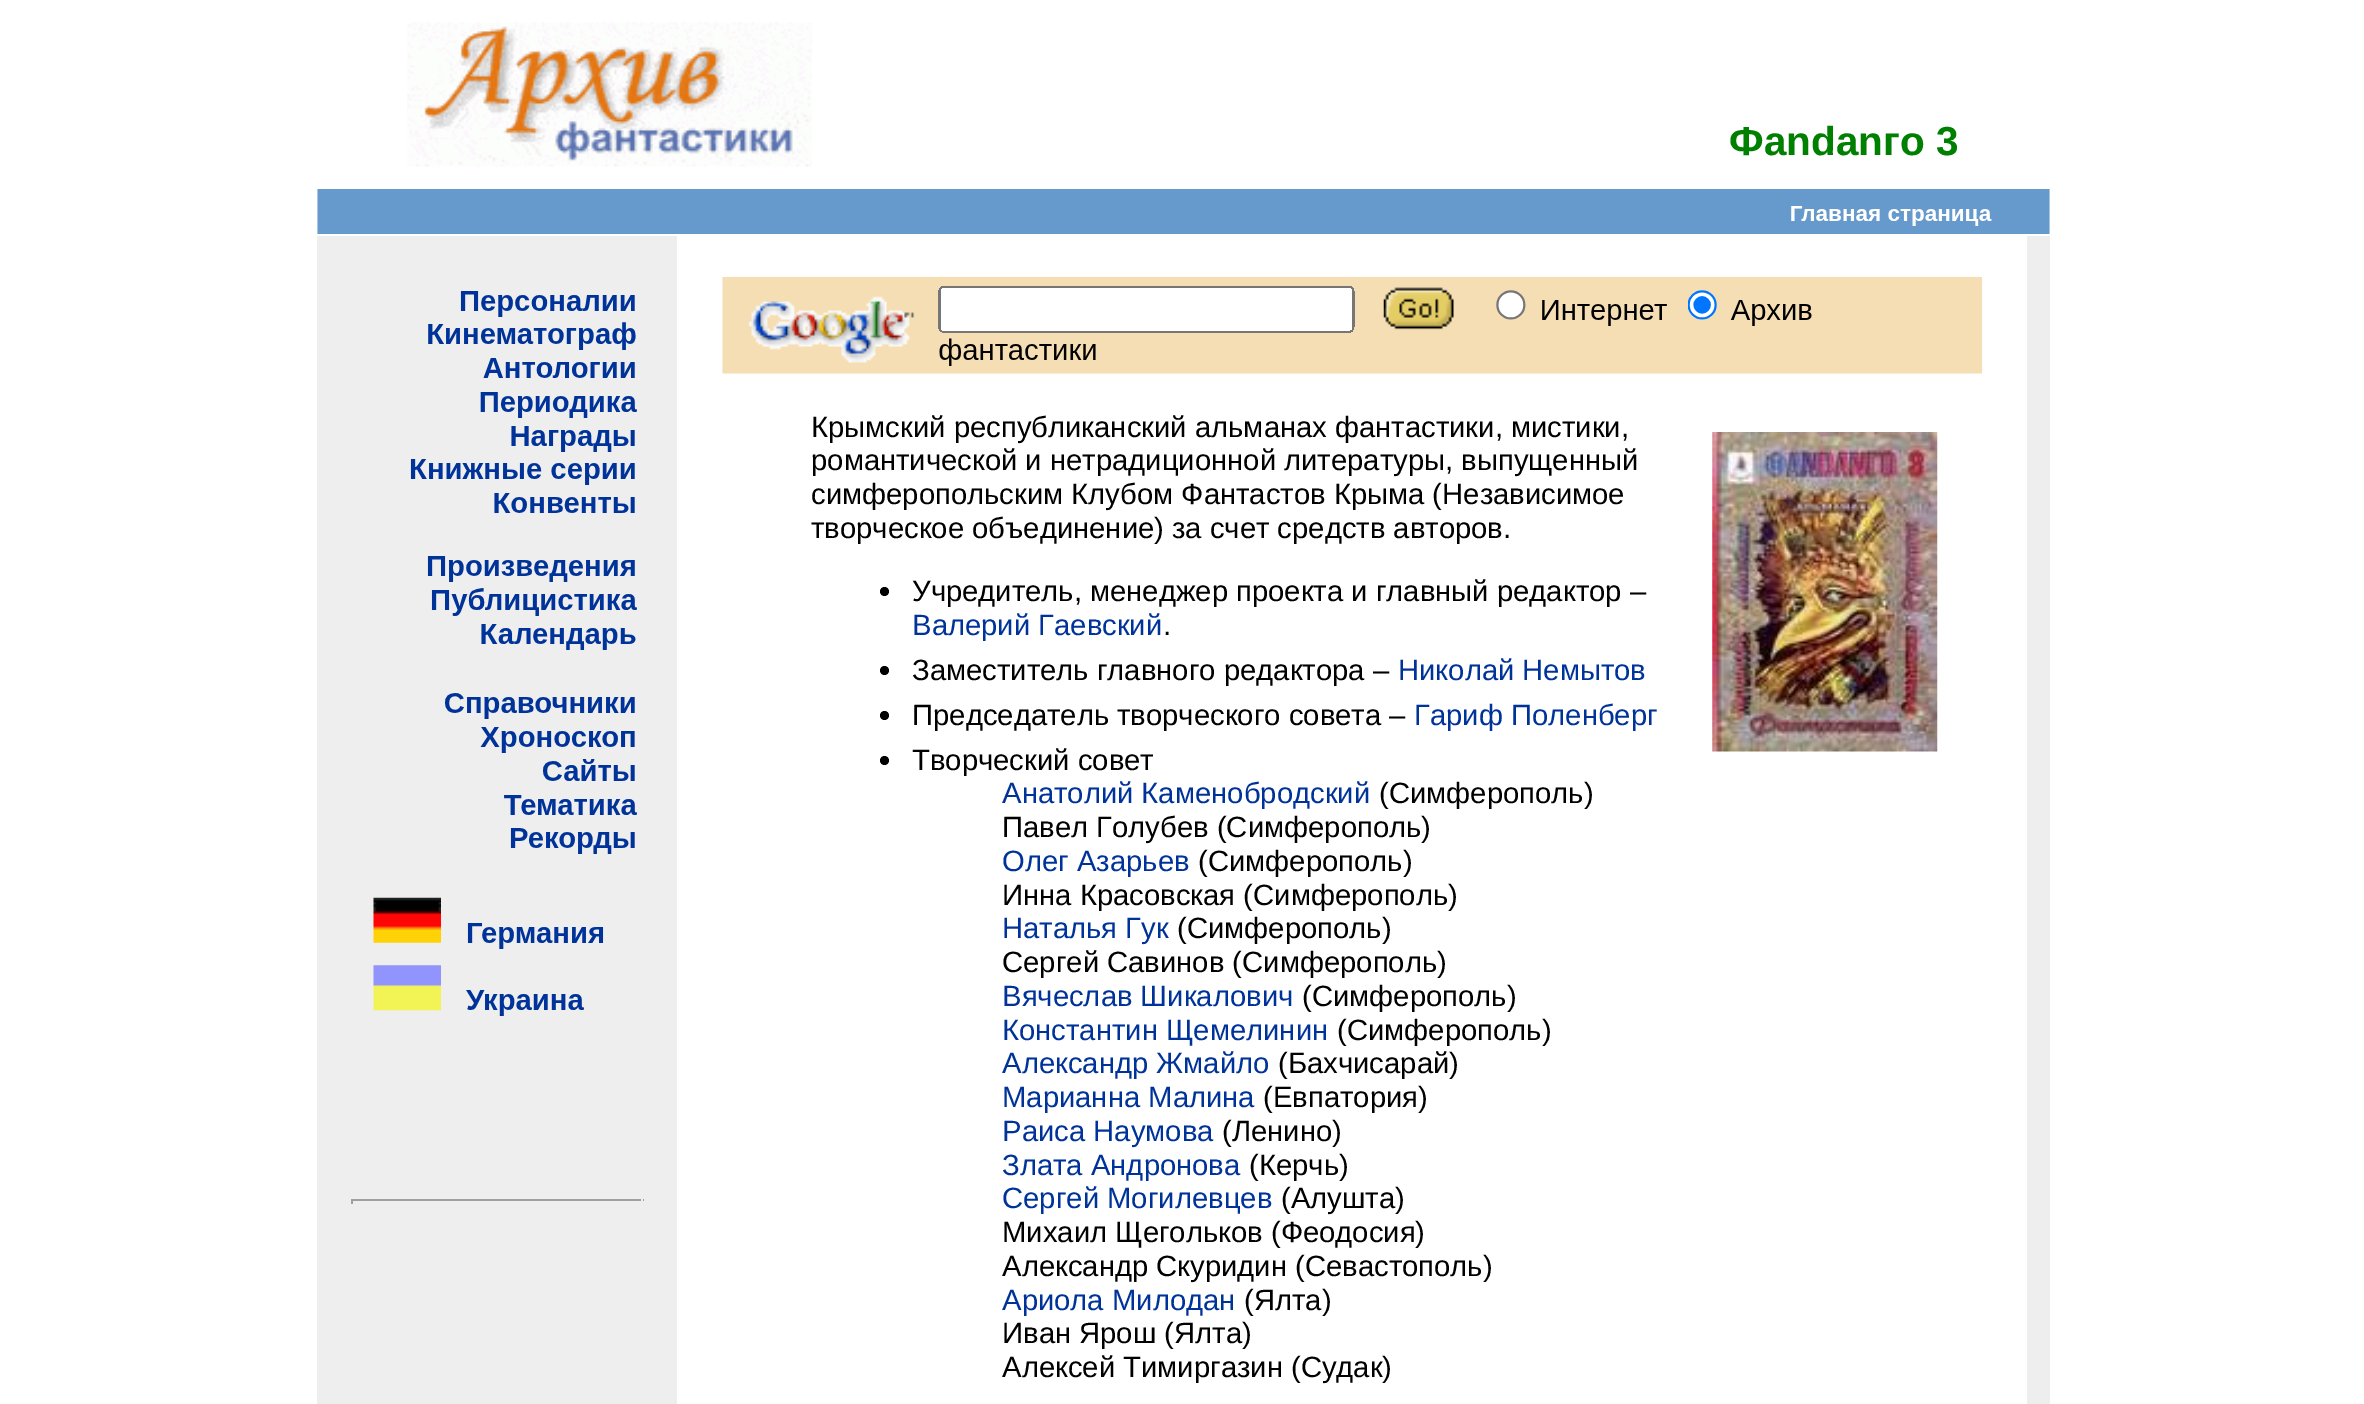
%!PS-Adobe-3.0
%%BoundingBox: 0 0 2364 1404
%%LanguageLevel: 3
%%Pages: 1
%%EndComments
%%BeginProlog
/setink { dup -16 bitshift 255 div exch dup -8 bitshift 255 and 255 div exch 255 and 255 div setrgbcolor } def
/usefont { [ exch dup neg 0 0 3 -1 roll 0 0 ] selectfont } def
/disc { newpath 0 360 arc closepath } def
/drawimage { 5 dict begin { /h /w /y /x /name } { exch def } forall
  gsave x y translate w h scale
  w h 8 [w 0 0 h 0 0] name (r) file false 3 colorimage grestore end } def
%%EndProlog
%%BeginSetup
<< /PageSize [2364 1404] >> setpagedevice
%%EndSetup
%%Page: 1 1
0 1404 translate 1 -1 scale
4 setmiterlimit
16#FFFFFF setink
0 0 2364 1404 rectfill
(img1.raw) 407 22 405 145 drawimage
/LiberationSans-Bold 40.5 usefont
16#008000 setink
1729 155 moveto (Фаndanго 3) show
(img2.raw) 317 189 1733 45 drawimage
16#EEEEEE setink
317 236 360 1168 rectfill
2027 236 23 1168 rectfill
(img3.raw) 373 291 264 725 drawimage
[
    [351 1199 293 2 16#9F9F9F]
    [641 1199 2 5 16#EEEEEE]
    [351 1199 2 5 16#9F9F9F]
] { aload pop setink rectfill } forall
(img4.raw) 722 276 1261 98 drawimage
/LiberationSans-Regular 29.25 usefont
16#000000 setink
[
    [(Крымский республиканский альманах фантастики, мистики,) 811 437]
    [(романтической и нетрадиционной литературы, выпущенный) 811 470]
    [(симферопольским Клубом Фантастов Крыма \(Независимое) 811 504]
    [(творческое объединение\) за счет средств авторов.) 811 538]
] { aload pop moveto show } forall
884.5 591.5 4.5 disc fill
912 601 moveto (Учредитель, менеджер проекта и главный редактор –) show
16#003399 setink
912 635 moveto (Валерий Гаевский) show
16#000000 setink
1163 635 moveto (.) show
884.5 670.5 4.5 disc fill
912 680 moveto (Заместитель главного редактора –) show
16#003399 setink
1398 680 moveto (Николай Немытов) show
16#000000 setink
884.5 715.5 4.5 disc fill
912 725 moveto (Председатель творческого совета –) show
16#003399 setink
1414 725 moveto (Гариф Поленберг) show
16#000000 setink
884.5 760.5 4.5 disc fill
912 770 moveto (Творческий совет) show
16#003399 setink
1002 803 moveto (Анатолий Каменобродский) show
16#000000 setink
1379 803 moveto (\(Симферополь\)) show
1002 837 moveto (Павел Голубев \(Симферополь\)) show
16#003399 setink
1002 871 moveto (Олег Азарьев) show
16#000000 setink
1198 871 moveto (\(Симферополь\)) show
1002 905 moveto (Инна Красовская \(Симферополь\)) show
16#003399 setink
1002 938 moveto (Наталья Гук) show
16#000000 setink
1177 938 moveto (\(Симферополь\)) show
1002 972 moveto (Сергей Савинов \(Симферополь\)) show
16#003399 setink
1002 1006 moveto (Вячеслав Шикалович) show
16#000000 setink
1302 1006 moveto (\(Симферополь\)) show
16#003399 setink
1002 1040 moveto (Константин Щемелинин) show
16#000000 setink
1337 1040 moveto (\(Симферополь\)) show
16#003399 setink
1002 1073 moveto (Александр Жмайло) show
16#000000 setink
1278 1073 moveto (\(Бахчисарай\)) show
16#003399 setink
1002 1107 moveto (Марианна Малина) show
16#000000 setink
1263 1107 moveto (\(Евпатория\)) show
16#003399 setink
1002 1141 moveto (Раиса Наумова) show
16#000000 setink
1222 1141 moveto (\(Ленино\)) show
16#003399 setink
1002 1175 moveto (Злата Андронова) show
16#000000 setink
1249 1175 moveto (\(Керчь\)) show
16#003399 setink
1002 1208 moveto (Сергей Могилевцев) show
16#000000 setink
[
    [(\(Алушта\)) 1281 1208]
    [(Михаил Щегольков \(Феодосия\)) 1002 1242]
    [(Александр Скуридин \(Севастополь\)) 1002 1276]
] { aload pop moveto show } forall
16#003399 setink
1002 1310 moveto (Ариола Милодан) show
16#000000 setink
[
    [(\(Ялта\)) 1244 1310]
    [(Иван Ярош \(Ялта\)) 1002 1343]
    [(Алексей Тимиргазин \(Судак\)) 1002 1377]
] { aload pop moveto show } forall
(img5.raw) 1712 432 226 320 drawimage
showpage
%%EOF
